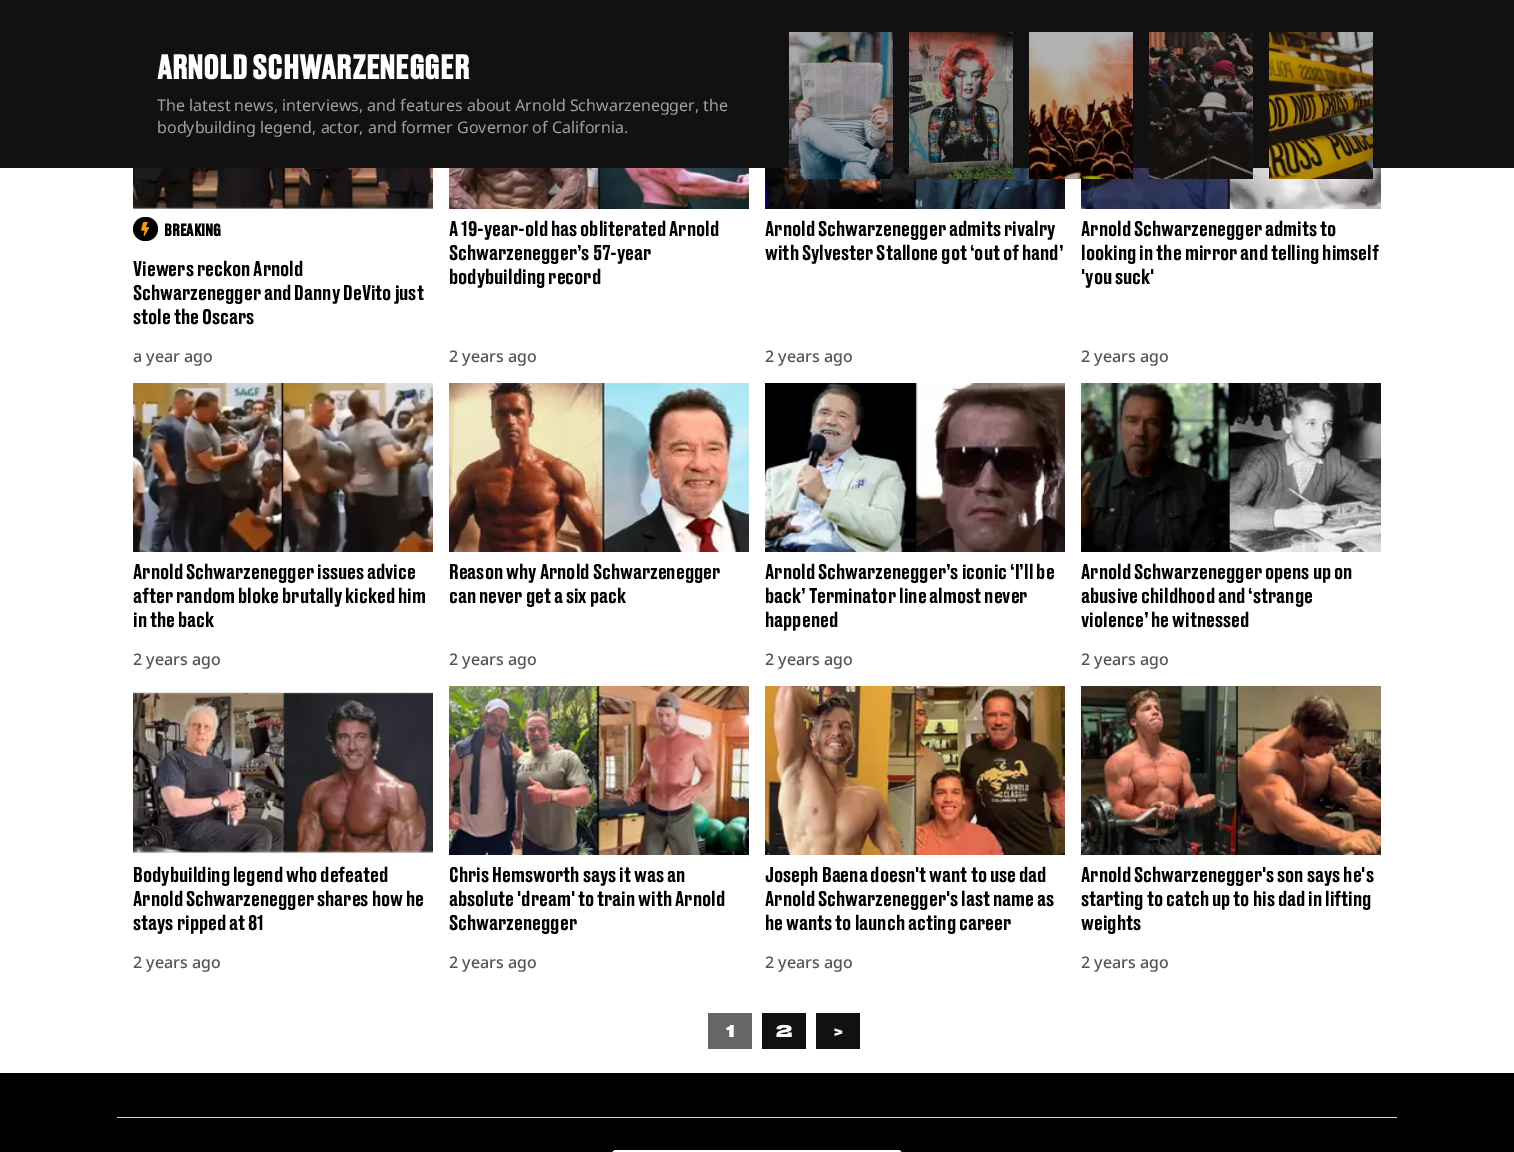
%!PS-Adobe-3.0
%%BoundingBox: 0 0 1514 1152
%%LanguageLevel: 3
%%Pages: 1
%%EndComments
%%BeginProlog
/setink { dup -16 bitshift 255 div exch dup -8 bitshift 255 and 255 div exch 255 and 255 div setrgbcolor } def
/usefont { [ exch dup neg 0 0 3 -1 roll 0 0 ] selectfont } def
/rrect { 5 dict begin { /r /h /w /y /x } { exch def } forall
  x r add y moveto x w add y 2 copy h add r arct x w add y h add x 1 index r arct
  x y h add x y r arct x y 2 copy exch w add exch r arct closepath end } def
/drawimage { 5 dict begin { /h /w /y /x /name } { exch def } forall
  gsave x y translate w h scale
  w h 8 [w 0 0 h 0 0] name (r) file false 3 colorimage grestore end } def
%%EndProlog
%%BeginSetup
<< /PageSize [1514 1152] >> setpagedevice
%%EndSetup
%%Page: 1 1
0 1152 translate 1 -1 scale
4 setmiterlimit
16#FFFFFF setink
0 0 1514 1152 rectfill
16#111111 setink
0 0 1514 168 rectfill
/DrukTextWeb-Bold 32 usefont
16#FFFFFF setink
157 79 moveto (ARNOLD SCHWARZENEGGER) show
/NotoSans-Regular 16 usefont
16#A0A0A0 setink
157 111 moveto (The latest news, interviews, and features about Arnold Schwarzenegger, the) show
157 133 moveto (bodybuilding legend, actor, and former Governor of California.) show
(img9.raw) 765 168 300 41 drawimage
(img1.raw) 789 32 104 147 drawimage
(img2.raw) 909 32 104 147 drawimage
(img10.raw) 1081 168 300 41 drawimage
(img3.raw) 1029 32 104 147 drawimage
(img4.raw) 1149 32 104 147 drawimage
(img5.raw) 1269 32 104 147 drawimage
(img6.raw) 133 168 300 41 drawimage
16#000000 setink
133 217 25 24 12 rrect fill
(img7.raw) 141 222 9 14 drawimage
/DrukTextWeb-Bold 16 usefont
164 236 moveto (BREAKING) show
/DrukTextWeb-Medium 20 usefont
[
    [(Viewers reckon Arnold) 133 276]
    [(Schwarzenegger and Danny DeVito just) 133 300]
    [(stole the Oscars) 133 324]
] { aload pop moveto show } forall
/NotoSans-Medium 16 usefont
16#555555 setink
133 362 moveto (a year ago) show
(img8.raw) 449 168 300 41 drawimage
/DrukTextWeb-Medium 20 usefont
16#000000 setink
[
    [(A 19-year-old has obliterated Arnold) 449 236]
    [(Schwarzenegger’s 57-year) 449 260]
    [(bodybuilding record) 449 284]
] { aload pop moveto show } forall
/NotoSans-Medium 16 usefont
16#555555 setink
449 362 moveto (2 years ago) show
/DrukTextWeb-Medium 20 usefont
16#000000 setink
765 236 moveto (Arnold Schwarzenegger admits rivalry) show
765 260 moveto (with Sylvester Stallone got ‘out of hand’) show
/NotoSans-Medium 16 usefont
16#555555 setink
765 362 moveto (2 years ago) show
/DrukTextWeb-Medium 20 usefont
16#000000 setink
[
    [(Arnold Schwarzenegger admits to) 1081 236]
    [(looking in the mirror and telling himself) 1081 260]
    [('you suck') 1081 284]
] { aload pop moveto show } forall
/NotoSans-Medium 16 usefont
16#555555 setink
1081 362 moveto (2 years ago) show
(img11.raw) 133 383 300 169 drawimage
/DrukTextWeb-Medium 20 usefont
16#000000 setink
[
    [(Arnold Schwarzenegger issues advice) 133 579]
    [(after random bloke brutally kicked him) 133 603]
    [(in the back) 133 627]
] { aload pop moveto show } forall
/NotoSans-Medium 16 usefont
16#555555 setink
133 665 moveto (2 years ago) show
(img12.raw) 449 383 300 169 drawimage
/DrukTextWeb-Medium 20 usefont
16#000000 setink
449 579 moveto (Reason why Arnold Schwarzenegger) show
449 603 moveto (can never get a six pack) show
/NotoSans-Medium 16 usefont
16#555555 setink
449 665 moveto (2 years ago) show
(img13.raw) 765 383 300 169 drawimage
/DrukTextWeb-Medium 20 usefont
16#000000 setink
[
    [(Arnold Schwarzenegger’s iconic ‘I’ll be) 765 579]
    [(back’ Terminator line almost never) 765 603]
    [(happened) 765 627]
] { aload pop moveto show } forall
/NotoSans-Medium 16 usefont
16#555555 setink
765 665 moveto (2 years ago) show
(img14.raw) 1081 383 300 169 drawimage
/DrukTextWeb-Medium 20 usefont
16#000000 setink
[
    [(Arnold Schwarzenegger opens up on) 1081 579]
    [(abusive childhood and ‘strange) 1081 603]
    [(violence’ he witnessed) 1081 627]
] { aload pop moveto show } forall
/NotoSans-Medium 16 usefont
16#555555 setink
1081 665 moveto (2 years ago) show
(img15.raw) 133 692 300 161 drawimage
/DrukTextWeb-Medium 20 usefont
16#000000 setink
[
    [(Bodybuilding legend who defeated) 133 882]
    [(Arnold Schwarzenegger shares how he) 133 906]
    [(stays ripped at 81) 133 930]
] { aload pop moveto show } forall
/NotoSans-Medium 16 usefont
16#555555 setink
133 968 moveto (2 years ago) show
(img16.raw) 449 686 300 169 drawimage
/DrukTextWeb-Medium 20 usefont
16#000000 setink
[
    [(Chris Hemsworth says it was an) 449 882]
    [(absolute 'dream' to train with Arnold) 449 906]
    [(Schwarzenegger) 449 930]
] { aload pop moveto show } forall
/NotoSans-Medium 16 usefont
16#555555 setink
449 968 moveto (2 years ago) show
(img17.raw) 765 686 300 169 drawimage
/DrukTextWeb-Medium 20 usefont
16#000000 setink
[
    [(Joseph Baena doesn't want to use dad) 765 882]
    [(Arnold Schwarzenegger's last name as) 765 906]
    [(he wants to launch acting career) 765 930]
] { aload pop moveto show } forall
/NotoSans-Medium 16 usefont
16#555555 setink
765 968 moveto (2 years ago) show
(img18.raw) 1081 686 300 169 drawimage
/DrukTextWeb-Medium 20 usefont
16#000000 setink
[
    [(Arnold Schwarzenegger's son says he's) 1081 882]
    [(starting to catch up to his dad in lifting) 1081 906]
    [(weights) 1081 930]
] { aload pop moveto show } forall
/NotoSans-Medium 16 usefont
16#555555 setink
1081 968 moveto (2 years ago) show
16#666666 setink
708 1013 44 36 rectfill
/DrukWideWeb-Bold 16 usefont
16#FFFFFF setink
726 1037 moveto (1) show
16#111111 setink
762 1013 44 36 rectfill
16#FFFFFF setink
776 1037 moveto (2) show
16#111111 setink
816 1013 44 36 rectfill
16#FFFFFF setink
834 1037 moveto (>) show
16#000000 setink
0 1073 1514 79 rectfill
16#D5D5D5 setink
117 1117 1280 1 rectfill
16#FFFFFF setink
3 setlinewidth
613.5 1151.5 287 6 2.5 rrect stroke
showpage
%%EOF
